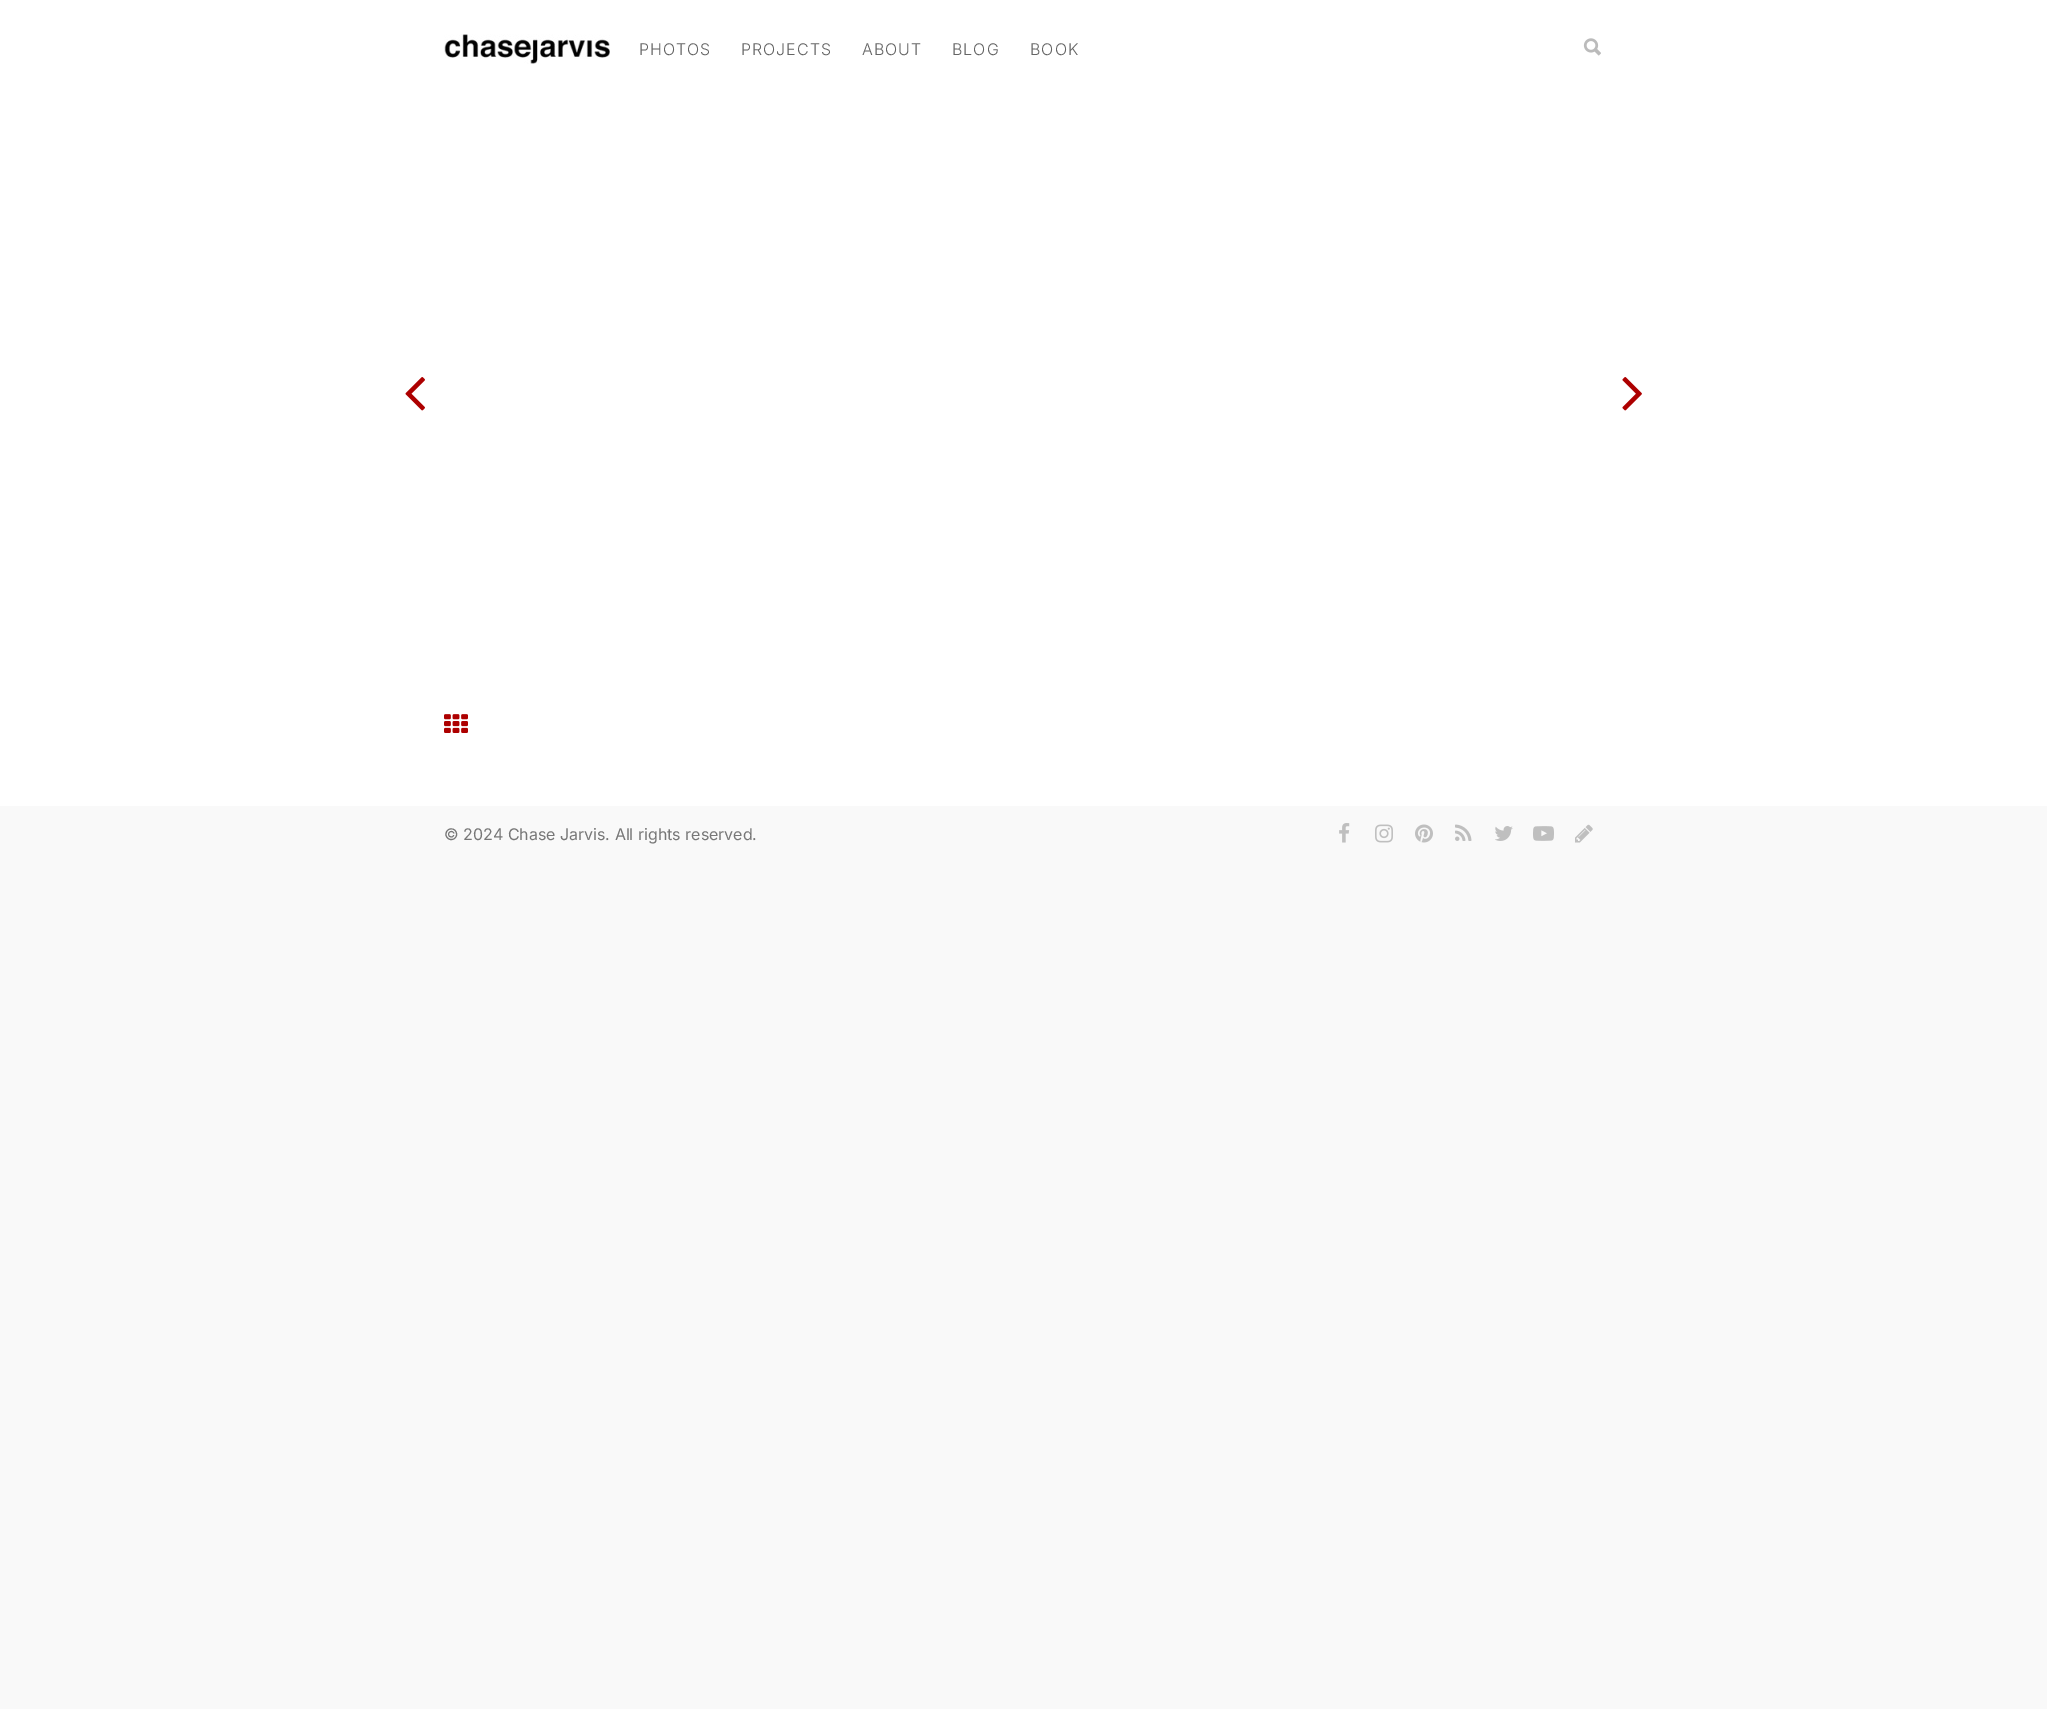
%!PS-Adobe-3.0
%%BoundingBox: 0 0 2047 1709
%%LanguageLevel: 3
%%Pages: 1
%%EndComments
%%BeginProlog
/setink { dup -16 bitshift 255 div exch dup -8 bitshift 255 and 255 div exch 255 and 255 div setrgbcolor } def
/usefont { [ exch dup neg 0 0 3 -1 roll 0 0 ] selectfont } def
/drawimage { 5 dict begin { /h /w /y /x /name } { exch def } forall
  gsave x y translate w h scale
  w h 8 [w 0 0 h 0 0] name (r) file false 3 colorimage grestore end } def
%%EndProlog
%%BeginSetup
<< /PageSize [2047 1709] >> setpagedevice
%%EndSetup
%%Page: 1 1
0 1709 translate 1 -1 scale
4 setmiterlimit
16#F9F9F9 setink
0 0 2047 1709 rectfill
16#FFFFFF setink
0 0 2047 806 rectfill
(img1.raw) 444 34 166 30 drawimage
/Inter-Light 16 usefont
16#656565 setink
639 55 moveto 1 0 (PHOTOS) ashow
741 55 moveto 1 0 (PROJECTS) ashow
862 55 moveto 1 0 (ABOUT) ashow
952 55 moveto 1 0 (BLOG) ashow
1030 55 moveto 1 0 (BOOK) ashow
(img2.raw) 1583 38 18 18 drawimage
(img3.raw) 405 377 20 34 drawimage
(img4.raw) 1622 377 20 34 drawimage
(img5.raw) 444 714 24 19 drawimage
/Inter-Regular 16 usefont
16#777777 setink
444 840 moveto (© 2024 Chase Jarvis. All rights reserved.) show
(img6.raw) 1339 823 11 20 drawimage
(img7.raw) 1375 824 18 19 drawimage
(img8.raw) 1415 824 18 19 drawimage
(img9.raw) 1455 824 17 17 drawimage
(img10.raw) 1495 826 18 15 drawimage
(img11.raw) 1533 826 21 15 drawimage
(img12.raw) 1575 824 18 19 drawimage
showpage
%%EOF
